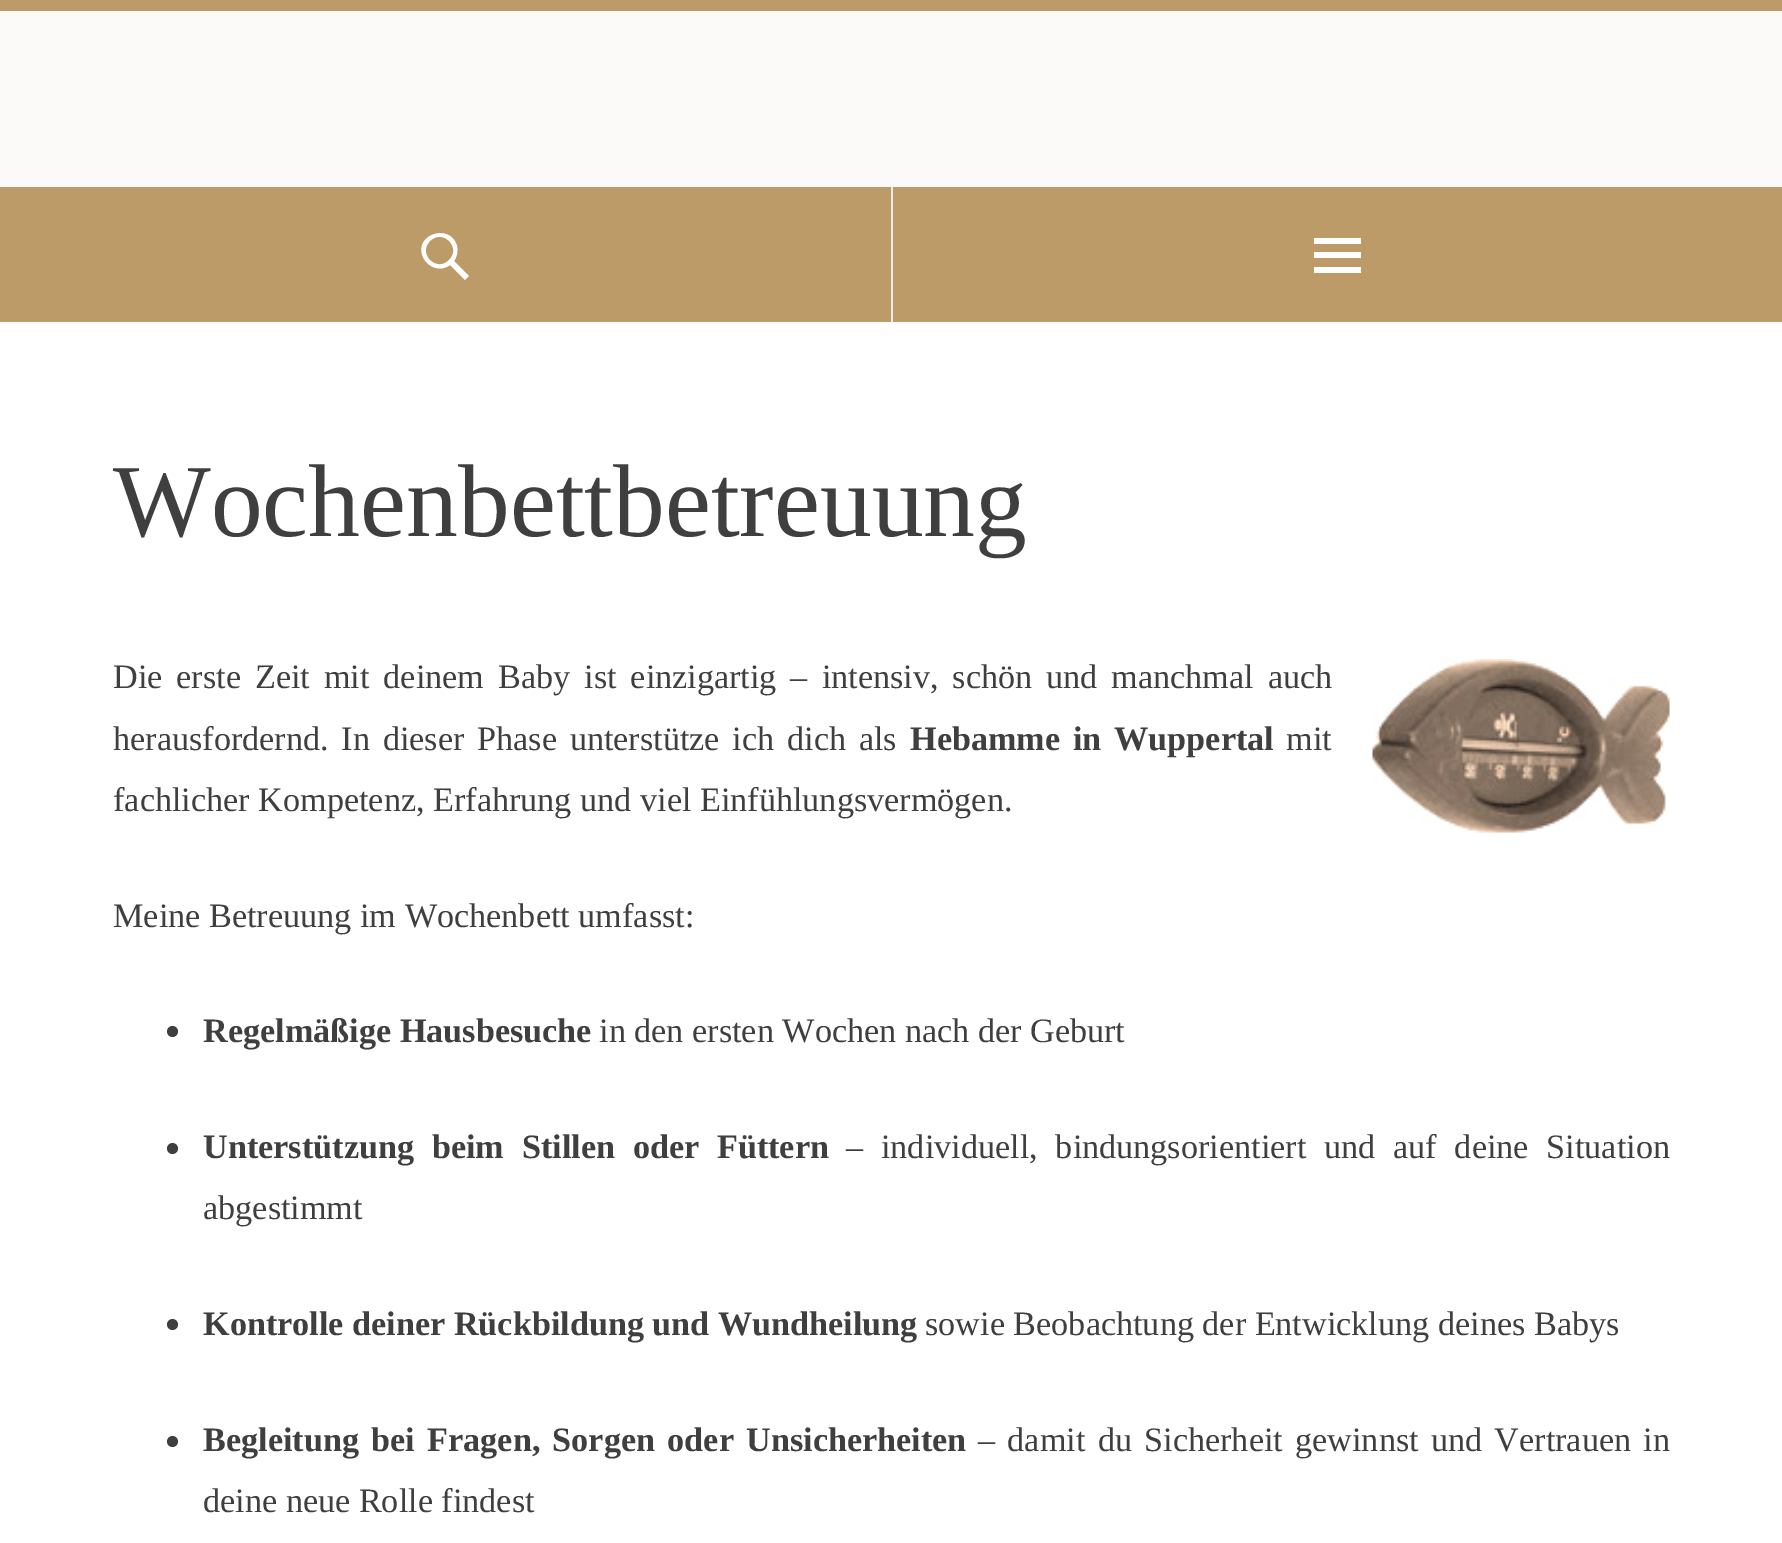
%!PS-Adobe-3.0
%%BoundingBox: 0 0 1782 1543
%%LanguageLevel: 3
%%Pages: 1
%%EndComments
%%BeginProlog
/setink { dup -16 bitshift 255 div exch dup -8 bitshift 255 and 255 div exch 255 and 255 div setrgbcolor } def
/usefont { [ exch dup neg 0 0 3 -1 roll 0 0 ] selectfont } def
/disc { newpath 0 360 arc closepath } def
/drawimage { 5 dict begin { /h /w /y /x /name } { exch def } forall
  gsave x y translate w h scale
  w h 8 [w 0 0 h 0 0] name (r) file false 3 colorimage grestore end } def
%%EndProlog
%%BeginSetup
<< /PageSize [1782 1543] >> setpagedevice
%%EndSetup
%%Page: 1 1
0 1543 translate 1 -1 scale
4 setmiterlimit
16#FFFFFF setink
0 0 1782 1543 rectfill
[
    [0 11 1782 176 16#FBFAF8]
    [0 0 1782 11 16#BC9B69]
    [0 187 891 135 16#BC9B69]
] { aload pop setink rectfill } forall
16#FFFFFF setink
423 257 moveto 413 235 450 222 457 246 curveto 458 251 457 257 454 261 curveto 469 276 lineto 465 280 lineto 450 265 lineto 441 272 428 268 423 257 curveto closepath 430 241 moveto 417 254 437 273 449 260 curveto 462 248 443 228 430 241 curveto closepath fill
16#BC9B69 setink
893 187 889 135 rectfill
16#EAEAEA setink
891 187 2 135 rectfill
16#FFFFFF setink
1314 273 moveto 1314 267 lineto 1361 267 lineto 1361 273 lineto closepath 1314 258 moveto 1314 252 lineto 1361 252 lineto 1361 258 lineto closepath 1314 244 moveto 1314 238 lineto 1361 238 lineto 1361 244 lineto closepath fill
/LiberationSerif-Regular 103.5 usefont
16#3F3F3F setink
113 536 moveto (Wochenbettbetreuung) show
/LiberationSerif-Regular 34.2 usefont
113 688 moveto 5.4 0 32 (Die erste Zeit mit deinem Baby ist einzigartig – intensiv, schön und manchmal auch) widthshow
113 750 moveto 4.25 0 32 (herausfordernd. In dieser Phase unterstütze ich dich als) widthshow
/LiberationSerif-Bold 34.2 usefont
910 750 moveto 4.25 0 32 (Hebamme in Wuppertal) widthshow
/LiberationSerif-Regular 34.2 usefont
1286 750 moveto (mit) show
113 811 moveto (fachlicher Kompetenz, Erfahrung und viel Einfühlungsvermögen.) show
(img1.raw) 1372 659 298 174 drawimage
113 927 moveto (Meine Betreuung im Wochenbett umfasst:) show
172.5 1031.5 5.5 disc fill
/LiberationSerif-Bold 34.2 usefont
203 1042 moveto (Regelmäßige Hausbesuche) show
/LiberationSerif-Regular 34.2 usefont
599 1042 moveto (in den ersten Wochen nach der Geburt) show
172.5 1148.5 5.5 disc fill
/LiberationSerif-Bold 34.2 usefont
203 1158 moveto 9.25 0 32 (Unterstützung beim Stillen oder Füttern) widthshow
/LiberationSerif-Regular 34.2 usefont
846 1158 moveto 9.25 0 32 (– individuell, bindungsorientiert und auf deine Situation) widthshow
203 1219 moveto (abgestimmt) show
172.5 1324.5 5.5 disc fill
/LiberationSerif-Bold 34.2 usefont
203 1335 moveto (Kontrolle deiner Rückbildung und Wundheilung) show
/LiberationSerif-Regular 34.2 usefont
925 1335 moveto (sowie Beobachtung der Entwicklung deines Babys) show
172.5 1441.5 5.5 disc fill
/LiberationSerif-Bold 34.2 usefont
203 1451 moveto 3.75 0 32 (Begleitung bei Fragen, Sorgen oder Unsicherheiten) widthshow
/LiberationSerif-Regular 34.2 usefont
978 1451 moveto 3.75 0 32 (– damit du Sicherheit gewinnst und Vertrauen in) widthshow
203 1512 moveto (deine neue Rolle findest) show
showpage
%%EOF
